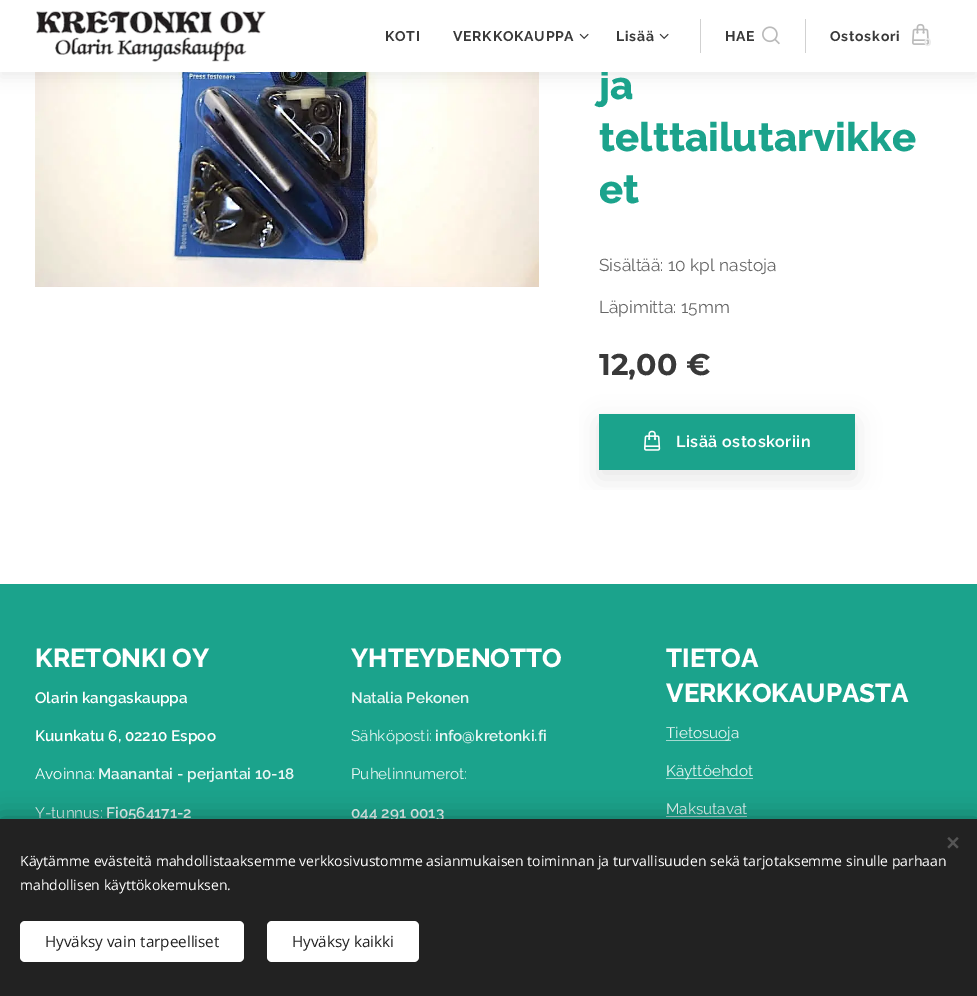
%!PS-Adobe-3.0
%%BoundingBox: 0 0 977 996
%%LanguageLevel: 3
%%Pages: 1
%%EndComments
%%BeginProlog
/setink { dup -16 bitshift 255 div exch dup -8 bitshift 255 and 255 div exch 255 and 255 div setrgbcolor } def
/usefont { [ exch dup neg 0 0 3 -1 roll 0 0 ] selectfont } def
/setalpha { dup .setfillconstantalpha .setstrokeconstantalpha } def
/rrect { 5 dict begin { /r /h /w /y /x } { exch def } forall
  x r add y moveto x w add y 2 copy h add r arct x w add y h add x 1 index r arct
  x y h add x y r arct x y 2 copy exch w add exch r arct closepath end } def
/softshadow { 12 dict begin { /a /b /q /h /w /y /x } { exch def } forall gsave /was 0 def
  9 -2 -9 { dup b mul 4 div /e exch def 1 sub .425 mul 2.718 exch exp 1 add a .99 .min exch div /now exch def
    1 1 now sub 1 was sub div sub setalpha /was now def
    w h .min e 2 mul add 0 gt { x e sub y e sub w e 2 mul add h e 2 mul add
      q e add b .6 mul add w h .min 2 div e add .min 0 .max rrect fill } if } for grestore end } def
/drawimage { 5 dict begin { /h /w /y /x /name } { exch def } forall
  gsave x y translate w h scale
  w h 8 [w 0 0 h 0 0] name (r) file false 3 colorimage grestore end } def
%%EndProlog
%%BeginSetup
<< /PageSize [977 996] /PageUsesTransparency true >> setpagedevice
%%EndSetup
%%Page: 1 1
0 .pushpdf14devicefilter
0 996 translate 1 -1 scale
4 setmiterlimit
16#FFFFFF setink
0 0 977 996 rectfill
(img5.raw) 35 72 504 215 drawimage
16#000000 setink
0 5 977 72 0 7.5 0.07 softshadow
/Raleway-ExtraBold 40 usefont
16#1BA38C setink
599 99 moveto (ja) show
16#FFFFFF setink
0 0 977 72 rectfill
(img1.raw) 36 10 230 52 drawimage
/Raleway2-Bold 14 usefont
16#393939 setink
385 41 moveto 0.75 0 (KOTI) ashow
453 41 moveto 0.75 0 (VERKKOKAUPPA) ashow
(img2.raw) 579 33 10 6 drawimage
616 41 moveto 0.75 0 (Lisää) ashow
(img2.raw) 659 33 10 6 drawimage
16#D1D1D1 setink
700 19 1 34 rectfill
16#393939 setink
725 41 moveto 0.75 0 (HAE) ashow
(img3.raw) 762 26 18 19 drawimage
16#D1D1D1 setink
805 19 1 34 rectfill
16#393939 setink
830 41 moveto 0.75 0 (Ostoskori) ashow
(img4.raw) 912 23 17 22 drawimage
/Montserrat-Bold 11 usefont
16#ECECEC setink
924 46 moveto (0) show
/Raleway-ExtraBold 40 usefont
16#1BA38C setink
599 151 moveto (telttailutarvikke) show
599 203 moveto (et) show
/Raleway-Regular 17.25 usefont
16#666666 setink
599 271 moveto (Sisältää: 10 kpl nastoja) show
599 313 moveto (Läpimitta: 15mm) show
/Montserrat-Bold 30 usefont
16#393939 setink
599 375 moveto (12,00 €) show
gsave
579 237 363 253 rectclip
16#000000 setink
599 422 256 56 0 12.5 0.1 softshadow
grestore
16#1BA38C setink
599 414 256 56 rectfill
(img6.raw) 644 430 17 21 drawimage
/Raleway2-SemiBold 16 usefont
16#FFFFFF setink
676 447 moveto 0.5 0 (Lisää ostoskoriin) ashow
16#1BA38C setink
0 584 977 235 rectfill
/Raleway-Bold 26 usefont
16#FFFFFF setink
35 667 moveto (KRETONKI OY) show
/Raleway-SemiBold 15.25 usefont
35 703 moveto (Olarin kangaskauppa) show
35 741 moveto (Kuunkatu 6, 02210 Espoo) show
/Raleway-Regular 15.25 usefont
35 779 moveto (Avoinna:) show
/Raleway-SemiBold 15.25 usefont
16#E8F6F4 setink
98 779 moveto (Maanantai - perjantai 10-18) show
/Raleway-Regular 15.25 usefont
35 818 moveto (Y-tunnus:) show
/Raleway-SemiBold 15.25 usefont
106 818 moveto (Fi0564171-2) show
/Raleway-Bold 26 usefont
16#FFFFFF setink
351 667 moveto (YHTEYDENOTTO) show
/Raleway-SemiBold 15.25 usefont
16#E8F6F4 setink
351 703 moveto (Natalia Pekonen) show
/Raleway-Regular 15.25 usefont
351 741 moveto (Sähköposti:) show
/Raleway-SemiBold 15.25 usefont
435 741 moveto (info@kretonki.fi) show
/Raleway-Regular 15.25 usefont
351 779 moveto (Puhelinnumerot:) show
/Raleway-SemiBold 15.25 usefont
351 818 moveto (044 291 0013) show
/Raleway-Bold 26 usefont
16#FFFFFF setink
666 667 moveto (TIETOA) show
666 702 moveto (VERKKOKAUPASTA) show
16#A4DAD1 setink
666 740 65 1 rectfill
/Raleway-Regular 15.25 usefont
16#E8F6F4 setink
666 738 moveto (Tietosuoja) show
16#A4DAD1 setink
666 778 87 1 rectfill
16#E8F6F4 setink
666 776 moveto (Käyttöehdot) show
666 814 moveto (Maksutavat) show
16#A4DAD1 setink
666 816 81 1 rectfill
16#000000 setink
0 819 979 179 0 12.5 0.33 softshadow
16#222222 setink
0 819 977 177 rectfill
16#555555 setink
947.5 847 moveto 957 837 lineto 958.5 838.5 lineto 949 848.5 lineto closepath fill
949 837 moveto 958.5 847 lineto 957 848.5 lineto 947.5 838.5 lineto closepath fill
/OpenSans-Regular 14 usefont
16#FFFFFF setink
20 866 moveto (Käytämme evästeitä mahdollistaaksemme verkkosivustomme asianmukaisen toiminnan ja turvallisuuden sekä tarjotaksemme sinulle parhaan) show
20 890 moveto (mahdollisen käyttökokemuksen.) show
20 921 224 41 5 rrect fill
/OpenSans-Regular 15.25 usefont
16#222222 setink
45 947 moveto (Hyväksy vain tarpeelliset) show
16#FFFFFF setink
267 921 152 41 5 rrect fill
16#222222 setink
292 947 moveto (Hyväksy kaikki) show
.poppdf14devicefilter showpage
%%EOF
